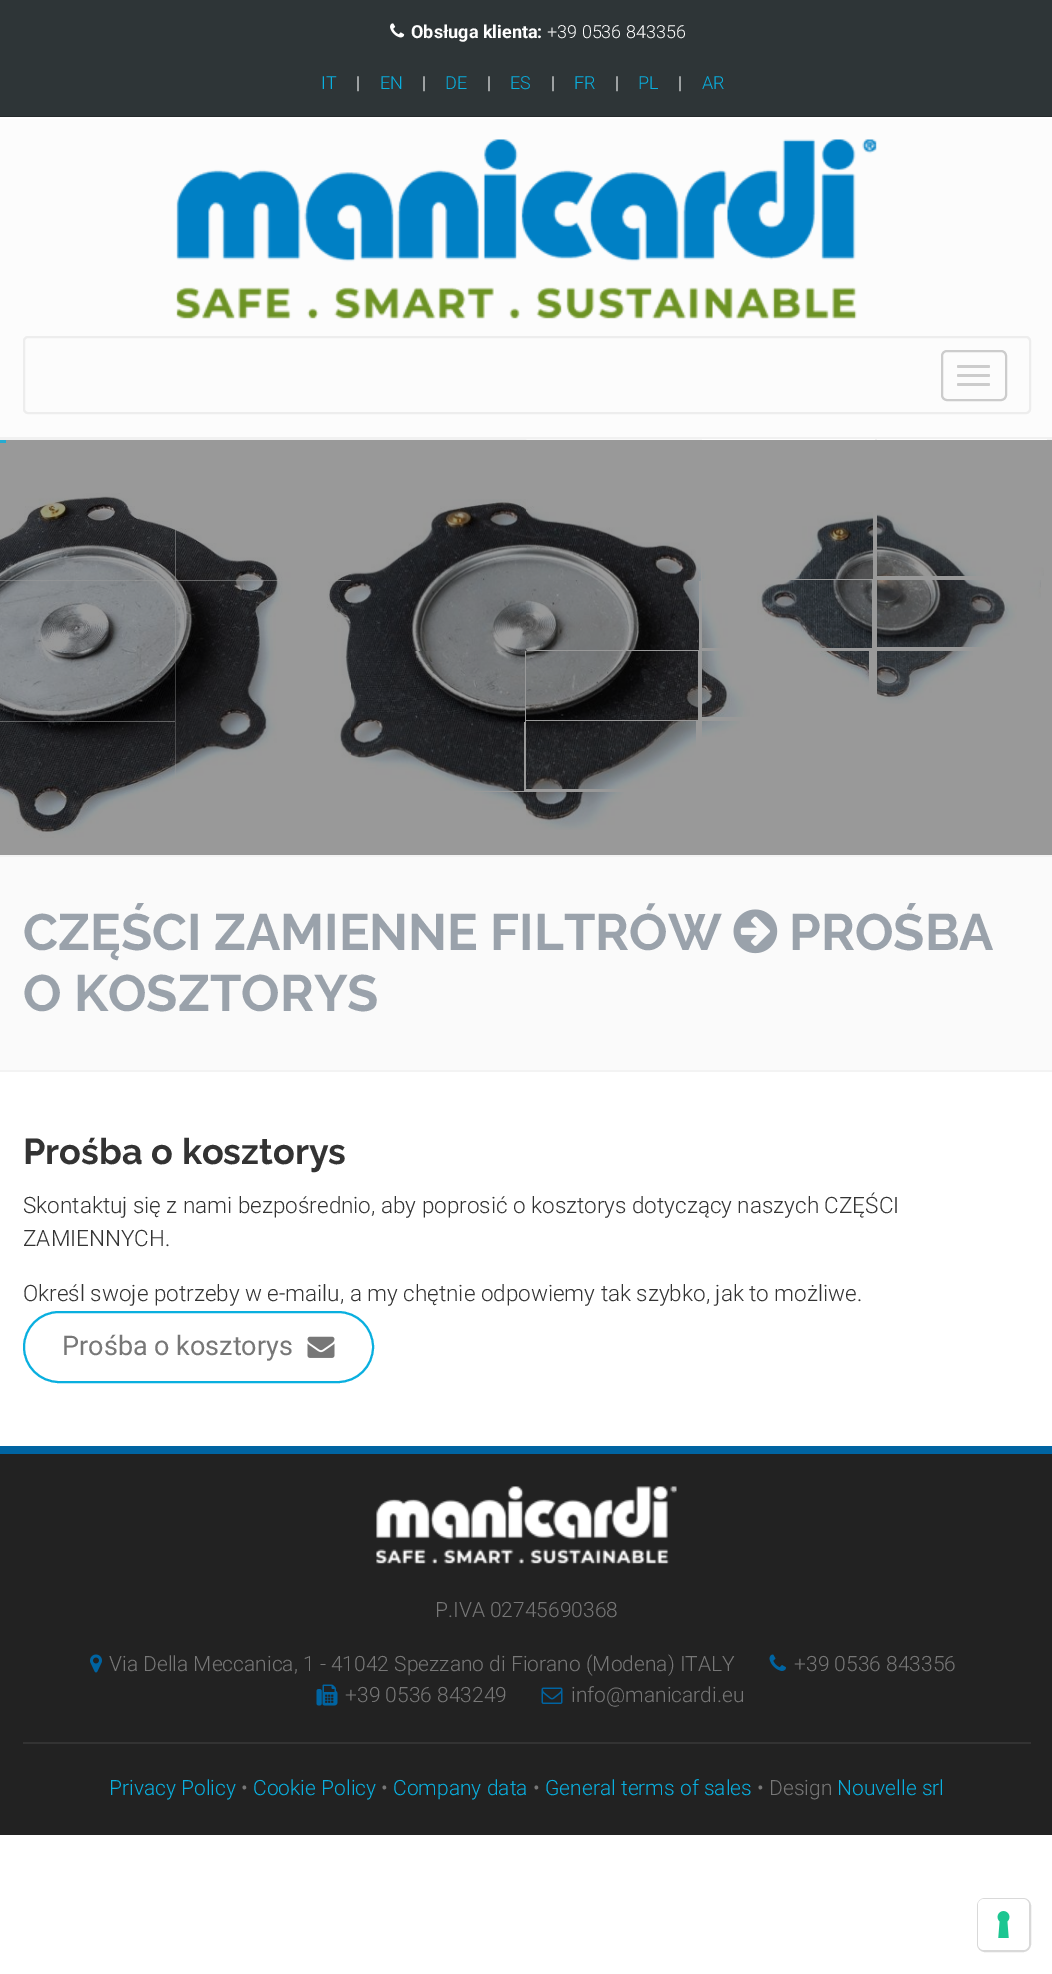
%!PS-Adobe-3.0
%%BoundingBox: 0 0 1052 1974
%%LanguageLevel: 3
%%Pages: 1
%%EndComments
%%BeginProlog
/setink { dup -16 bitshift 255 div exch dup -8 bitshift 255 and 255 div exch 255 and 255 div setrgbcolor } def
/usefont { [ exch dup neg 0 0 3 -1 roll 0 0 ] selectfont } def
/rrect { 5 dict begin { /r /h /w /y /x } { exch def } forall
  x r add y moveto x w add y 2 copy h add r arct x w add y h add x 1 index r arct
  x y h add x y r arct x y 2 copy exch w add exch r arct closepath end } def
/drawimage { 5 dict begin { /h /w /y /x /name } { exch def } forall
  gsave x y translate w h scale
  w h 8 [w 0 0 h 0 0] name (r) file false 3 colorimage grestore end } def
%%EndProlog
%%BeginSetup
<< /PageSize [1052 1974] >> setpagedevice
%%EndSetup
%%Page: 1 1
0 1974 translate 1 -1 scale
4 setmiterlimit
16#FFFFFF setink
0 0 1052 1974 rectfill
[
    [0 440 1052 415 16#999999]
    [0 0 1052 116 16#2E3537]
    [0 116 1052 1 16#252A2C]
] { aload pop setink rectfill } forall
(img1.raw) 390 23 15 15 drawimage
/Roboto-Bold 18 usefont
16#FFFFFF setink
411 38 moveto (Obsługa klienta:) show
/Roboto-Light 18 usefont
547 38 moveto (+39 0536 843356) show
16#09AFDF setink
321 89 moveto (IT) show
16#FFFFFF setink
356 89 moveto (|) show
16#09AFDF setink
380 89 moveto (EN) show
16#FFFFFF setink
422 89 moveto (|) show
16#09AFDF setink
445 89 moveto (DE) show
16#FFFFFF setink
487 89 moveto (|) show
16#09AFDF setink
510 89 moveto (ES) show
16#FFFFFF setink
551 89 moveto (|) show
16#09AFDF setink
574 89 moveto (FR) show
16#FFFFFF setink
615 89 moveto (|) show
16#09AFDF setink
638 89 moveto (PL) show
16#FFFFFF setink
678 89 moveto (|) show
16#09AFDF setink
702 89 moveto (AR) show
16#FCFCFC setink
0 119 1052 318 rectfill
16#F1F1F1 setink
0 437 1052 3 rectfill
(img2.raw) 176 139 701 180 drawimage
16#EDEDED setink
2 setlinewidth
24 337 1006 76 4 rrect stroke
16#CCCCCC setink
942 351 64 49 5 rrect stroke
957 365 33 3 1.5 rrect fill
957 374 33 3 1.5 rrect fill
957 383 33 3 1.5 rrect fill
(img5.raw) 440 499 87 11 drawimage
(img3.raw) 526 439 176 71 drawimage
16#FFFFFF setink
702 439 173 1 rectfill
16#FEFEFE setink
877 439 170 1 rectfill
(img4.raw) 25 493 110 17 drawimage
(img6.raw) 0 510 176 71 drawimage
(img12.raw) 0 580 176 71 drawimage
(img7.raw) 175 528 176 53 drawimage
(img8.raw) 351 510 176 71 drawimage
(img14.raw) 351 580 176 71 drawimage
(img9.raw) 526 510 175 71 drawimage
(img10.raw) 702 512 171 67 drawimage
(img11.raw) 877 510 167 66 drawimage
(img13.raw) 175 580 176 71 drawimage
(img15.raw) 526 580 173 70 drawimage
(img16.raw) 702 580 170 68 drawimage
(img17.raw) 877 580 164 67 drawimage
(img18.raw) 0 651 176 71 drawimage
(img24.raw) 0 721 176 71 drawimage
(img19.raw) 175 651 176 71 drawimage
(img20.raw) 351 651 174 71 drawimage
(img21.raw) 526 651 172 69 drawimage
(img22.raw) 702 651 167 66 drawimage
(img23.raw) 877 651 96 53 drawimage
(img25.raw) 175 721 176 58 drawimage
(img26.raw) 351 721 173 70 drawimage
(img27.raw) 526 721 170 68 drawimage
(img28.raw) 702 721 38 16 drawimage
(img29.raw) 0 792 140 46 drawimage
(img30.raw) 474 792 53 20 drawimage
(img31.raw) 526 792 98 38 drawimage
[
    [0 440 6 3 16#26ABD1]
    [0 857 1052 213 16#FAFAFA]
    [0 855 1052 2 16#F3F3F3]
    [0 1070 1052 2 16#F3F3F3]
] { aload pop setink rectfill } forall
/Raleway-Bold 51 usefont
16#9AA2AB setink
23 950 moveto (CZĘŚCI ZAMIENNE FILTRÓW) show
(img32.raw) 733 909 45 45 drawimage
789 950 moveto (PROŚBA) show
23 1011 moveto (O KOSZTORYS) show
/Raleway-Bold 36 usefont
16#333333 setink
23 1164 moveto (Prośba o kosztorys) show
/Roboto-Light 22.5 usefont
[
    [(Skontaktuj się z nami bezpośrednio, aby poprosić o kosztorys dotyczący naszych CZĘŚCI) 23 1213]
    [(ZAMIENNYCH.) 23 1246]
    [(Określ swoje potrzeby w e-mailu, a my chętnie odpowiemy tak szybko, jak to możliwe.) 23 1301]
] { aload pop moveto show } forall
16#09AFDF setink
24 1312 349 70 35 rrect stroke
/Roboto-Regular 27 usefont
16#777777 setink
62 1355 moveto (Prośba o kosztorys) show
(img33.raw) 307 1336 28 22 drawimage
16#222222 setink
0 1454 1052 381 rectfill
16#0064A2 setink
0 1446 1052 8 rectfill
(img34.raw) 376 1486 301 78 drawimage
/Roboto-Light 21 usefont
16#777777 setink
435 1617 moveto (P.IVA 02745690368) show
(img35.raw) 90 1654 12 19 drawimage
109 1671 moveto (Via Della Meccanica, 1 - 41042 Spezzano di Fiorano \(Modena\) ITALY) show
(img36.raw) 769 1654 17 17 drawimage
794 1671 moveto (+39 0536 843356) show
(img37.raw) 316 1684 22 22 drawimage
345 1702 moveto (+39 0536 843249) show
(img38.raw) 541 1687 22 17 drawimage
571 1702 moveto (info@manicardi.eu) show
16#333333 setink
23 1742 1008 2 rectfill
16#09AFDF setink
109 1795 moveto (Privacy Policy) show
16#777777 setink
241 1795 moveto (•) show
16#09AFDF setink
253 1795 moveto (Cookie Policy) show
16#777777 setink
381 1795 moveto (•) show
16#09AFDF setink
393 1795 moveto (Company data) show
16#777777 setink
533 1795 moveto (•) show
16#09AFDF setink
545 1795 moveto (General terms of sales) show
16#777777 setink
757 1795 moveto (• Design) show
16#09AFDF setink
837 1795 moveto (Nouvelle srl) show
16#D9D9D9 setink
978 1899 52 52 7 rrect stroke
16#FFFFFF setink
978 1899 51 51 6 rrect fill
(img39.raw) 997 1911 13 27 drawimage
showpage
%%EOF
